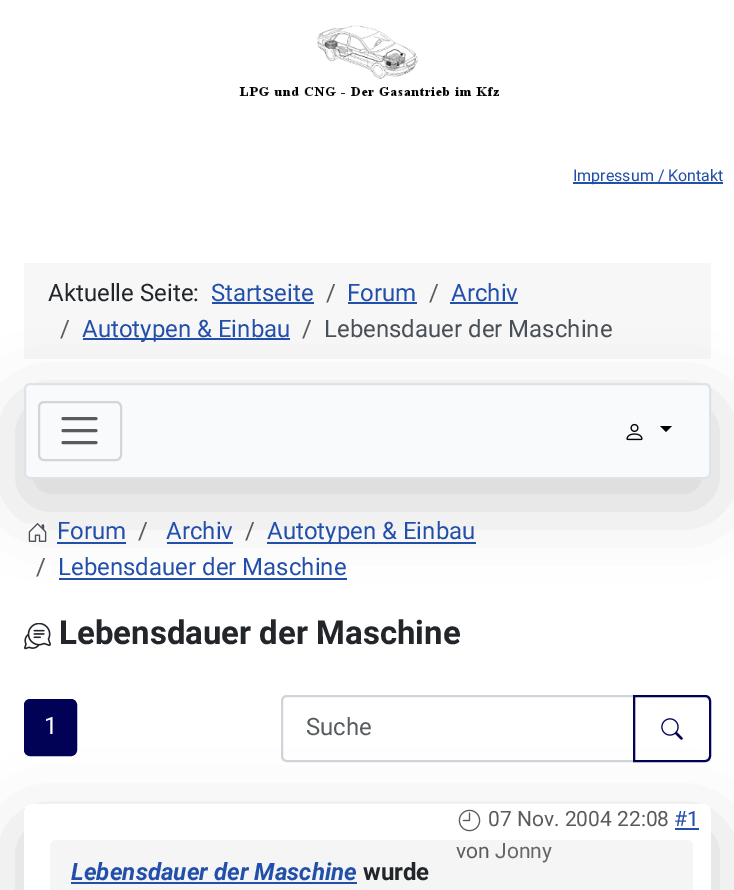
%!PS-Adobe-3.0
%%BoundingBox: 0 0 734 890
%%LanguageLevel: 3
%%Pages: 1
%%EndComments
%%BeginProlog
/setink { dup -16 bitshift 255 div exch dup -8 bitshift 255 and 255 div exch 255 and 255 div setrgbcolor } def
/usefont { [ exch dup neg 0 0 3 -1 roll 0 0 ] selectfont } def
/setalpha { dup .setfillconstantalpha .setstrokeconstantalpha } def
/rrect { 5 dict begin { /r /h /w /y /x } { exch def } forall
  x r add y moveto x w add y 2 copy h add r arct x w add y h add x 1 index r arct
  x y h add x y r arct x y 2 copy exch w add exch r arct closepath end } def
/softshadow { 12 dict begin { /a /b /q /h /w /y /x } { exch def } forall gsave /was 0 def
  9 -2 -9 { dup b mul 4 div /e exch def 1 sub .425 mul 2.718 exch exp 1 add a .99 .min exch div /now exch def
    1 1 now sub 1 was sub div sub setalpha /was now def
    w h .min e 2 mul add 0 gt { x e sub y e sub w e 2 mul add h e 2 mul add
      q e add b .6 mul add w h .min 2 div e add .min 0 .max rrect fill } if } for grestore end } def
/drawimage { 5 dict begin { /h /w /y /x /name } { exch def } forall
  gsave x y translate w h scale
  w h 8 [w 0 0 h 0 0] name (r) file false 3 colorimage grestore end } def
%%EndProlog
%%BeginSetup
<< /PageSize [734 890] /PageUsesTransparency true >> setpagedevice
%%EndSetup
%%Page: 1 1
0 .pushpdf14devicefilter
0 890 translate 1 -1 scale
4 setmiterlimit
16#FFFFFF setink
0 0 734 890 rectfill
(img1.raw) 239 25 260 71 drawimage
16#224FAA setink
573 182 150 2 rectfill
/Roboto-Regular 16 usefont
573 181 moveto (Impressum / Kontakt) show
16#F7F7F7 setink
24 263 687 96 rectfill
/Roboto-Regular 24 usefont
16#22262A setink
48 301 moveto (Aktuelle Seite:) show
16#224FAA setink
211 301 moveto (Startseite) show
212 302 102 2 rectfill
16#595C5F setink
326 301 moveto (/) show
16#224FAA setink
347 301 moveto (Forum) show
348 302 69 2 rectfill
16#595C5F setink
429 301 moveto (/) show
16#224FAA setink
451 301 moveto (Archiv) show
450 302 68 2 rectfill
16#595C5F setink
60 337 moveto (/) show
16#224FAA setink
83 338 207 2 rectfill
82 337 moveto (Autotypen & Einbau) show
16#595C5F setink
302 337 moveto (/) show
16#484F56 setink
324 337 moveto (Lebensdauer der Maschine) show
16#000000 setink
24 407 687 96 6 36 0.18 softshadow
16#F9FAFB setink
25 384 685 94 5 rrect gsave fill grestore
16#DFE3E7 setink
2 setlinewidth
stroke
16#D4D5D5 setink
39 402 82 58 5 rrect stroke
16#585B5E setink
3 setlinewidth
1 setlinecap
63 418.5 moveto 96 418.5 lineto 63 430.5 moveto 96 430.5 lineto 63 442.5 moveto 96 442.5 lineto stroke
(img2.raw) 626 423 17 18 drawimage
16#000000 setink
660 426 moveto 672 426 lineto 666 432 lineto closepath fill
(img3.raw) 28 523 19 19 drawimage
16#224FAA setink
57 539 moveto (Forum) show
57 542 69 2 rectfill
16#595C5F setink
138 539 moveto (/) show
16#224FAA setink
166 539 moveto (Archiv) show
167 542 66 2 rectfill
16#595C5F setink
245 539 moveto (/) show
16#224FAA setink
267 542 209 2 rectfill
267 539 moveto (Autotypen & Einbau) show
16#595C5F setink
36 575 moveto (/) show
16#224FAA setink
58 575 moveto (Lebensdauer der Maschine) show
59 578 288 2 rectfill
(img4.raw) 24 623 27 27 drawimage
/Roboto-Bold 33 usefont
16#22262A setink
59 644 moveto (Lebensdauer der Maschine) show
gsave
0 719 moveto 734 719 lineto 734 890 lineto 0 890 lineto closepath 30 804 moveto 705 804 lineto 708.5 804 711 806.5 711 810 curveto 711 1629 lineto 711 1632.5 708.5 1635 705 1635 curveto 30 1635 lineto 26.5 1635 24 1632.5 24 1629 curveto 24 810 lineto 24 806.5 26.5 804 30 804 curveto closepath eoclip newpath
16#000000 setink
24 828 687 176 6 36 0.18 softshadow
grestore
16#010156 setink
25 700 51 55 5 rrect gsave fill grestore
2 setlinewidth
0 setlinecap
stroke
/Roboto-Regular 24 usefont
16#FFFFFF setink
44 734 moveto (1) show
16#CED4DA setink
287 696 moveto 634 696 lineto 634 761 lineto 287 761 lineto 284 761 282 759 282 756 curveto 282 701 lineto 282 698 284 696 287 696 curveto closepath stroke
16#595C5F setink
306 735 moveto (Suche) show
16#010156 setink
634 696 moveto 705 696 lineto 708 696 710 698 710 701 curveto 710 756 lineto 710 759 708 761 705 761 curveto 634 761 lineto closepath stroke
(img5.raw) 661 718 22 22 drawimage
(img6.raw) 458 809 23 23 drawimage
/Roboto-Regular 21 usefont
16#595C5F setink
488 826 moveto (07 Nov. 2004 22:08) show
16#224FAA setink
674 826 moveto (#1) show
675 828 24 2 rectfill
16#F5F5F5 setink
56 840 moveto 687 840 lineto 690.5 840 693 842.5 693 846 curveto 693 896 lineto 50 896 lineto 50 846 lineto 50 842.5 52.5 840 56 840 curveto closepath fill
16#595C5F setink
456 858 moveto (von) show
16#666666 setink
495 858 moveto (Jonny) show
/Roboto-BoldItalic 24 usefont
16#224FAA setink
71 880 moveto (Lebensdauer der Maschine) show
71 882 286 2 rectfill
/Roboto-Bold 24 usefont
16#22262A setink
363 880 moveto (wurde) show
.poppdf14devicefilter showpage
%%EOF
